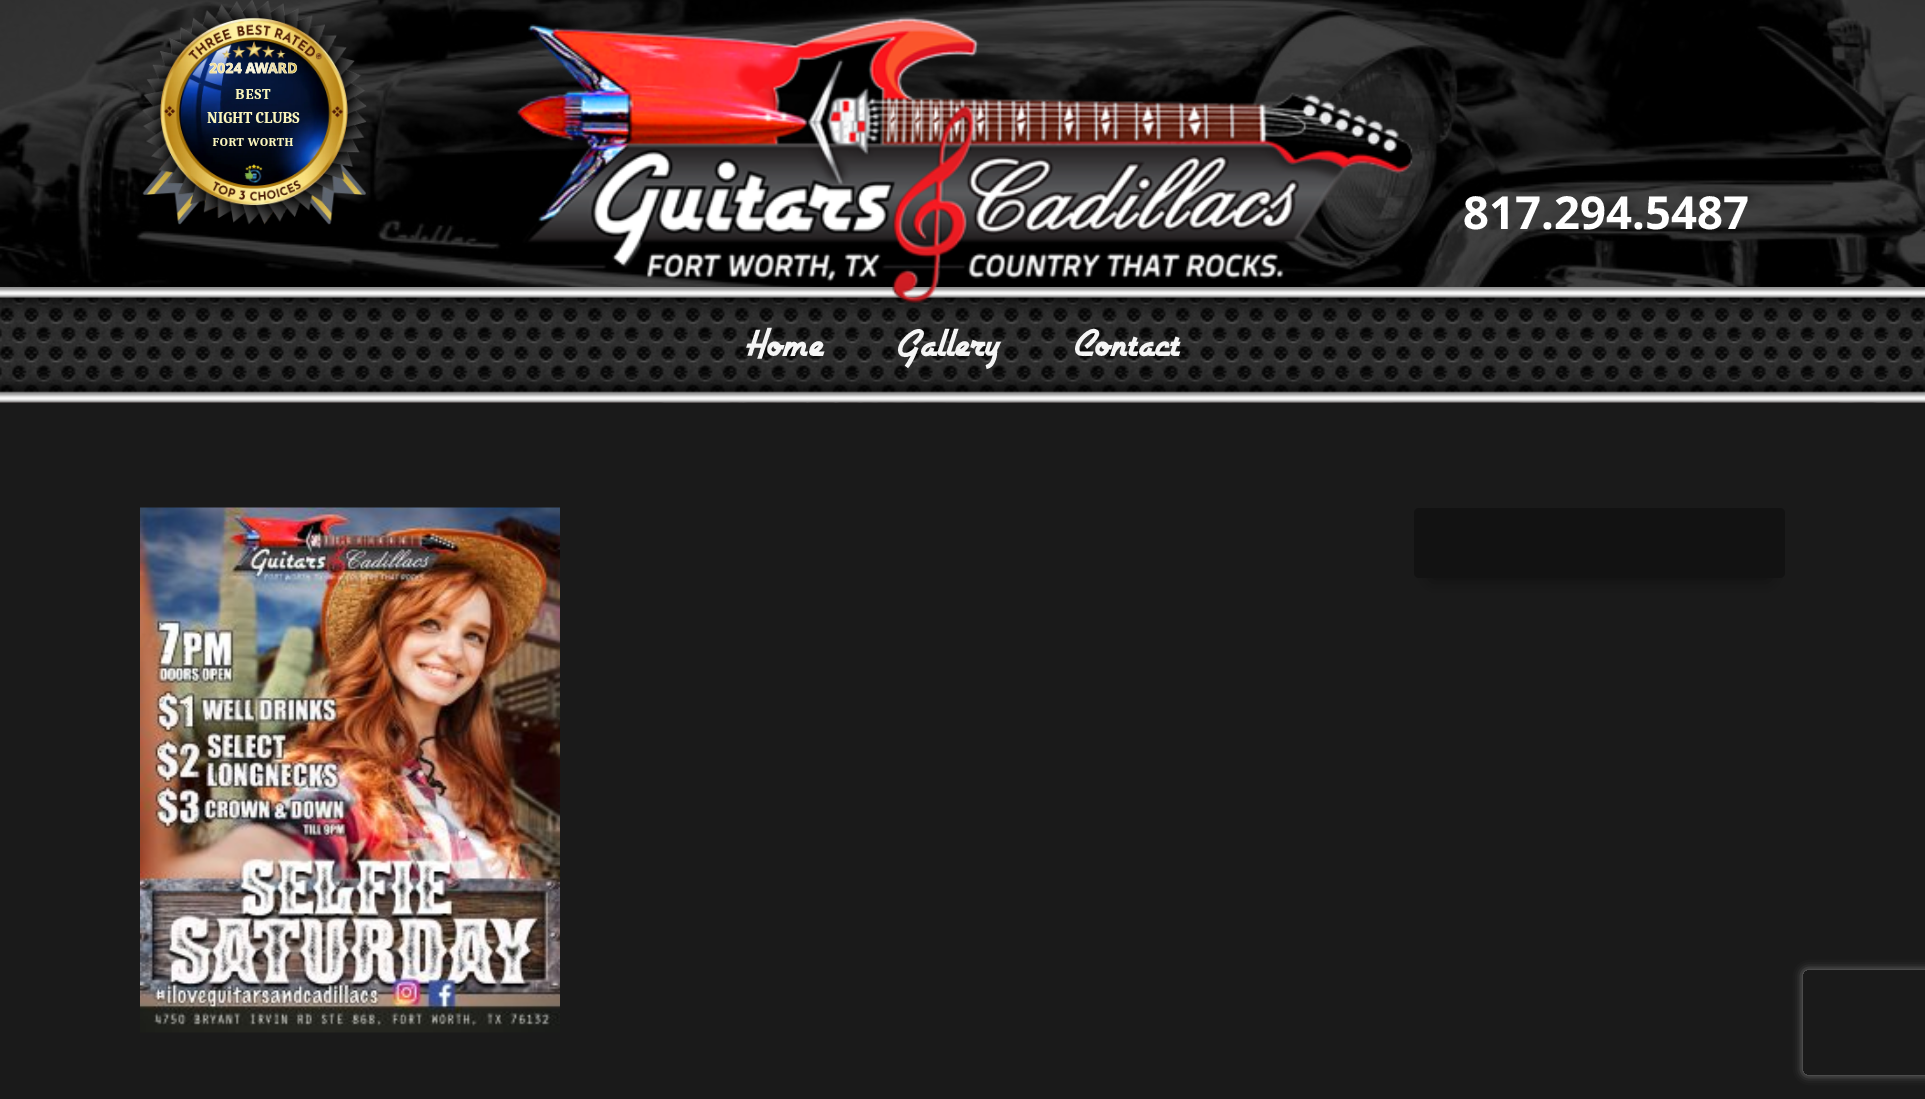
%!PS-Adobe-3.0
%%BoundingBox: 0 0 1925 1099
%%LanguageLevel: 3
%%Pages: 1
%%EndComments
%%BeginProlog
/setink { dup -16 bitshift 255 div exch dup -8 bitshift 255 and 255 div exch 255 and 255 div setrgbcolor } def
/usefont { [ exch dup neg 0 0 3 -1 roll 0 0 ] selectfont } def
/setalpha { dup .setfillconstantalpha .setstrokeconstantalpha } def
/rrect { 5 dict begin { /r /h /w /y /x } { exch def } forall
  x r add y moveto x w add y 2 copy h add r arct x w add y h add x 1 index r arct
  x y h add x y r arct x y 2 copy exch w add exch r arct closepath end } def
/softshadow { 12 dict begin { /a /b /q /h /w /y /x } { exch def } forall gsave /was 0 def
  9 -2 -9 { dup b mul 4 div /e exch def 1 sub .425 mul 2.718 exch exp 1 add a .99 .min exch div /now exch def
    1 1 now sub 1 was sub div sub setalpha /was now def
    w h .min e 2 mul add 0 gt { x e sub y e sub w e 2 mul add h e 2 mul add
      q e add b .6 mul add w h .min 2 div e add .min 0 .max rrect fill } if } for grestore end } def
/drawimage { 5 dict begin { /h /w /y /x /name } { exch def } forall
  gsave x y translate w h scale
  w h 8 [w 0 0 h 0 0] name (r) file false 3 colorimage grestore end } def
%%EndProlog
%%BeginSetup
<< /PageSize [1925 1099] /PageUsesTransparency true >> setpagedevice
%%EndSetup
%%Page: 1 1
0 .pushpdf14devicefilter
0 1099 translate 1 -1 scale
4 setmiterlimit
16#1A1A1A setink
0 0 1925 1099 rectfill
(img1.raw) 0 0 1925 403 drawimage
(img2.raw) 0 287 1925 116 drawimage
(img3.raw) 142 0 225 225 drawimage
(img4.raw) 513 17 900 286 drawimage
/OpenSans-Bold 45.5 usefont
16#FFFFFF setink
1463 229 moveto (817.294.5487) show
/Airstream-Regular 44 usefont
16#F5F5F5 setink
[
    [(Home) 746 356]
    [(Gallery) 898 356]
    [(Contact) 1075 356]
] { aload pop moveto show } forall
(img5.raw) 140 507 420 526 drawimage
16#000000 setink
1432 543 336 35 0 9 0.45 softshadow
16#121212 setink
1414 508 371 70 5 rrect fill
gsave
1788 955 moveto 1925 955 lineto 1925 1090 lineto 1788 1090 lineto closepath 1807 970 moveto 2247 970 lineto 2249 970 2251 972 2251 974 curveto 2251 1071 lineto 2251 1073 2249 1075 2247 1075 curveto 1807 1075 lineto 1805 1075 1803 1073 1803 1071 curveto 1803 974 lineto 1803 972 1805 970 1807 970 curveto closepath eoclip newpath
16#808080 setink
1803 970 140 105 4 4.5 1 softshadow
grestore
.poppdf14devicefilter showpage
%%EOF
